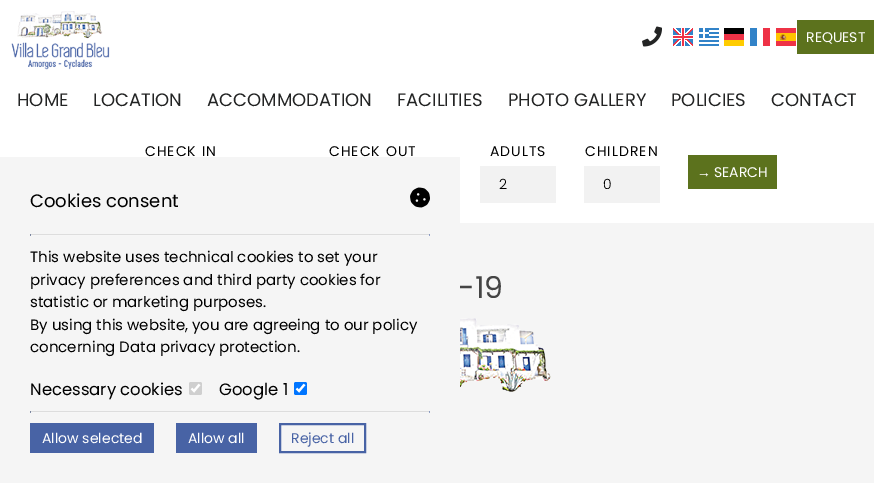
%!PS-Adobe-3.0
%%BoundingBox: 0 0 874 483
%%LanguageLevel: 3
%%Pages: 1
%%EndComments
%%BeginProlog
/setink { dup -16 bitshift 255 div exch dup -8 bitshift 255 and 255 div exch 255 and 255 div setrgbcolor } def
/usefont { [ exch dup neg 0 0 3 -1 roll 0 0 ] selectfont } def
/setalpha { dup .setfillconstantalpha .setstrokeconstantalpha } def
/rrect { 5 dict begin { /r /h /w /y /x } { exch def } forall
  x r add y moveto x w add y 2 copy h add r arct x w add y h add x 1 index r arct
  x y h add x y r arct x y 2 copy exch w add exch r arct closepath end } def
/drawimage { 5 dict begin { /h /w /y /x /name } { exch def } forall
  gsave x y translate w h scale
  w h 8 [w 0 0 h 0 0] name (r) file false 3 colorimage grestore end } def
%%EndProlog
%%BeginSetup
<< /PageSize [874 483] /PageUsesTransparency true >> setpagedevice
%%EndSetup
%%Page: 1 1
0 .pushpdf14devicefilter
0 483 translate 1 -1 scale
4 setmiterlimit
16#F5F5F5 setink
0 0 874 483 rectfill
16#FFFFFF setink
0 0 874 223 rectfill
(img1.raw) 11 11 99 59 drawimage
(img2.raw) 642 26 20 21 drawimage
(img3.raw) 673 28 20 18 drawimage
(img4.raw) 699 28 20 18 drawimage
(img5.raw) 724 28 20 18 drawimage
(img6.raw) 750 28 20 18 drawimage
(img7.raw) 776 28 20 18 drawimage
16#5C721D setink
797 20 77 34 rectfill
/Poppins-Regular 14 usefont
16#FFFFFF setink
806 42 moveto (REQUEST) show
/Poppins-Regular 18 usefont
16#232424 setink
[
    [(HOME) 17 106]
    [(LOCATION) 93 106]
    [(ACCOMMODATION) 207 106]
    [(FACILITIES) 397 106]
    [(PHOTO GALLERY) 508 106]
    [(POLICIES) 671 106]
    [(CONTACT) 771 106]
] { aload pop moveto show } forall
/Poppins-Regular 14 usefont
16#000000 setink
145 156 moveto 1 0 (CHECK IN) ashow
329 156 moveto 1 0 (CHECK OUT) ashow
490 156 moveto 1 0 (ADULTS) ashow
16#F2F2F2 setink
480 166 76 37 rectfill
/Poppins-Light 14 usefont
16#000000 setink
499 189 moveto (2) show
/Poppins-Regular 14 usefont
585 156 moveto 1 0 (CHILDREN) ashow
16#F2F2F2 setink
584 166 76 37 rectfill
/Poppins-Light 14 usefont
16#000000 setink
603 189 moveto (0) show
16#5C721D setink
688 155 89 34 rectfill
/LiberationSans-Regular 14 usefont
16#FFFFFF setink
697 177 moveto (→) show
/Poppins-Regular 14 usefont
714 177 moveto (SEARCH) show
/Poppins-Regular 30 usefont
16#444444 setink
458 298 moveto (-19) show
16#F5F5F5 setink
0 157 460 132 rectfill
/Poppins-Regular 18 usefont
16#000000 setink
30 207 moveto (Cookies consent) show
(img8.raw) 410 187 20 21 drawimage
16#DDDDDD setink
30 234 moveto 430 234 lineto 429 235 lineto 31 235 lineto closepath fill
16#4863A5 setink
430 234 moveto 430 236 lineto 429 235 lineto closepath fill
0.1 setalpha
16#FFFFFF setink
430 236 moveto 30 236 lineto 31 235 lineto 429 235 lineto closepath fill
1 setalpha
16#30426E setink
30 236 moveto 30 234 lineto 31 235 lineto closepath fill
/Poppins-Regular 15 usefont
16#000000 setink
[
    [(This website uses technical cookies to set your) 30 262]
    [(privacy preferences and third party cookies for) 30 285]
    [(statistic or marketing purposes.) 30 307]
    [(By using this website, you are agreeing to our policy) 30 330]
    [(concerning Data privacy protection.) 30 352]
] { aload pop moveto show } forall
/Poppins-Regular 16.5 usefont
30 395 moveto (Necessary cookies) show
16#CFCFCF setink
189 382 13 13 2 rrect fill
16#FFFFFF setink
2.1 setlinewidth
191.5 388.5 moveto 194 391 lineto 199.5 384.5 lineto stroke
16#000000 setink
219 395 moveto (Google 1) show
16#0075FF setink
294 382 13 13 2 rrect fill
16#FFFFFF setink
296.5 388.5 moveto 299 391 lineto 304.5 384.5 lineto stroke
16#DDDDDD setink
30 411 moveto 430 411 lineto 429 412 lineto 31 412 lineto closepath fill
16#4863A5 setink
430 411 moveto 430 413 lineto 429 412 lineto closepath fill
0.1 setalpha
16#FFFFFF setink
430 413 moveto 30 413 lineto 31 412 lineto 429 412 lineto closepath fill
1 setalpha
16#30426E setink
30 413 moveto 30 411 lineto 31 412 lineto closepath fill
16#4863A5 setink
30 423 124 30 rectfill
/Poppins-Regular 14 usefont
16#FFFFFF setink
42 443 moveto (Allow selected) show
16#4863A5 setink
176 423 81 30 rectfill
16#FFFFFF setink
188 443 moveto (Allow all) show
16#4863A5 setink
2 setlinewidth
280 424 85 28 rectstroke
291 443 moveto (Reject all) show
(img9.raw) 460 318 91 74 drawimage
.poppdf14devicefilter showpage
%%EOF
